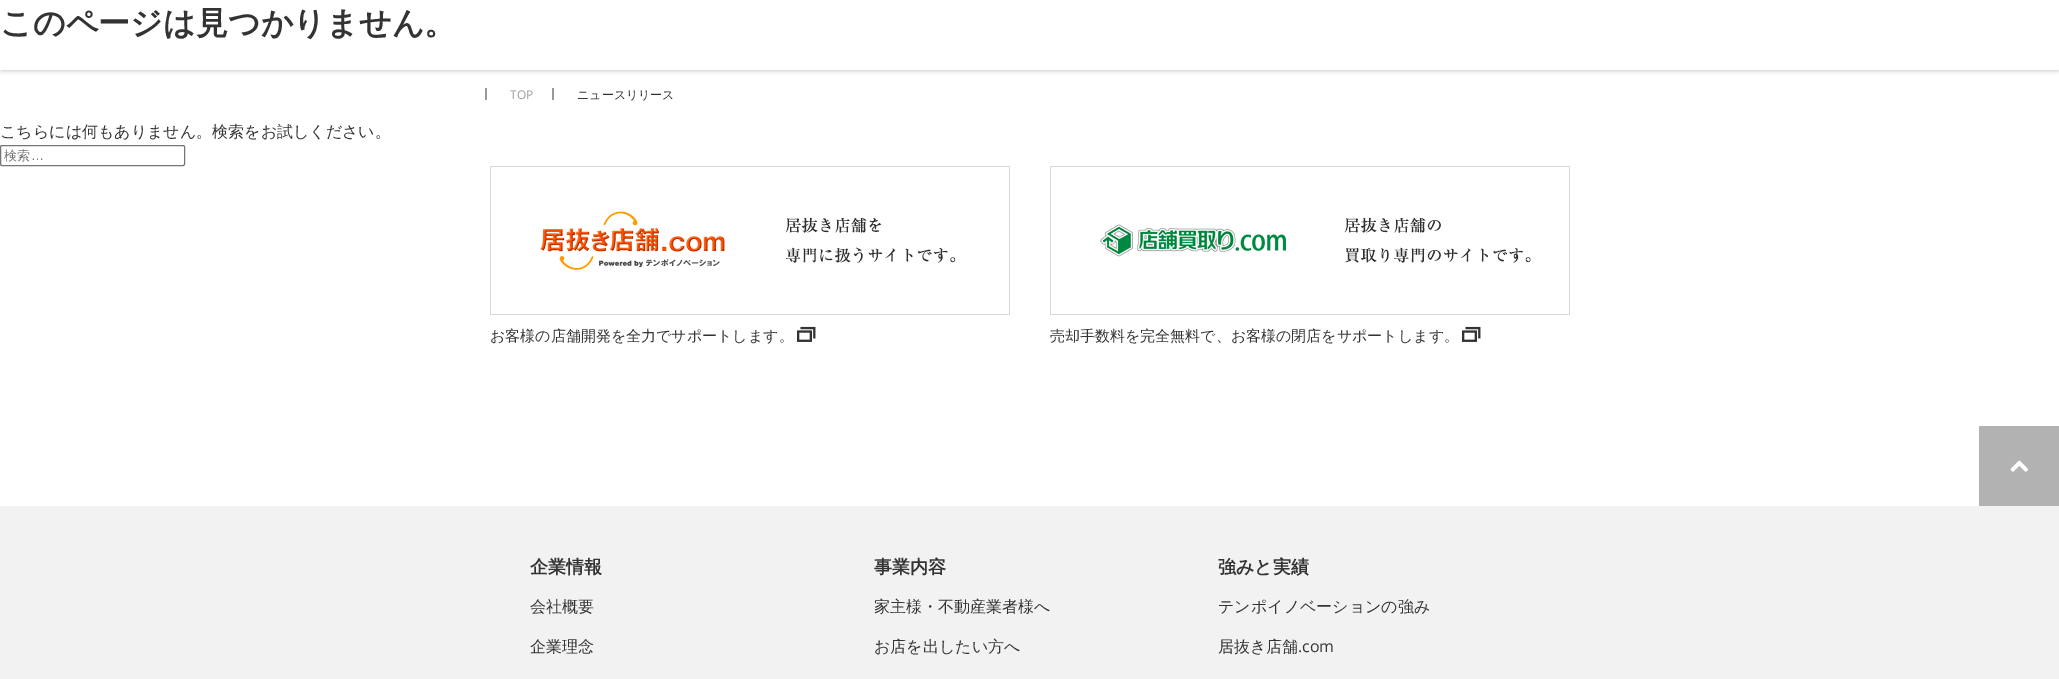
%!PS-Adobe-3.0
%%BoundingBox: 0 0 2059 679
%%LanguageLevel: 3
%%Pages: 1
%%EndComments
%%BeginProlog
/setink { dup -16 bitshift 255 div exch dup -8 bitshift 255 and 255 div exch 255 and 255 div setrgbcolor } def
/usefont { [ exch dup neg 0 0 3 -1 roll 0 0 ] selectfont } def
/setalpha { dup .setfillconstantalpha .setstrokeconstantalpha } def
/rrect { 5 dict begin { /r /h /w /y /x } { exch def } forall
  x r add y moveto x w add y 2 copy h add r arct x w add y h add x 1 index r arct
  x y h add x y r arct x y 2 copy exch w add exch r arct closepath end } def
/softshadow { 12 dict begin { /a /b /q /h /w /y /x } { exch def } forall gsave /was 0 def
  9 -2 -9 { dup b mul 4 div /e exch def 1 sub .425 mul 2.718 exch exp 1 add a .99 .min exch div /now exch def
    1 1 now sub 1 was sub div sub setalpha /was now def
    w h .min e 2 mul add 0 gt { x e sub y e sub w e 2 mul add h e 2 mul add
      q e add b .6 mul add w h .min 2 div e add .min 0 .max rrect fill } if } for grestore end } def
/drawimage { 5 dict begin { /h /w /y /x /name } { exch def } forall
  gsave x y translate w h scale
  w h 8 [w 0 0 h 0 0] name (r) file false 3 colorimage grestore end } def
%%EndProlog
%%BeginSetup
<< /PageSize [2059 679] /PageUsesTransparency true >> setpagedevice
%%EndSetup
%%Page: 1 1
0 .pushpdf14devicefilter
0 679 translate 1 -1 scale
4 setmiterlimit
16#FFFFFF setink
0 0 2059 679 rectfill
16#000000 setink
1 3 2057 68 0 2 0.1 softshadow
1 3 2057 68 0 2 0.1 softshadow
16#FFFFFF setink
0 0 2059 70 rectfill
/WenQuanYiZenHei-Bold 32 usefont
16#333333 setink
0 34 moveto (このページは見つかりません。) show
/WenQuanYiZenHei-Medium 16 usefont
0 137 moveto (こちらには何もありません。検索をお試しください。) show
16#767676 setink
0.5 145.5 184 20 1.5 rrect stroke
/WenQuanYiZenHei-Medium 13 usefont
16#757575 setink
4 160 moveto (検索) show
/LiberationSans-Regular 13 usefont
31 160 moveto (…) show
16#999999 setink
485 88 2 12 rectfill
/OpenSans-Regular 12 usefont
510 99 moveto (TOP) show
552 88 2 12 rectfill
/WenQuanYiZenHei-Medium 12 usefont
16#333333 setink
577 99 moveto (ニュースリリース) show
(img1.raw) 490 166 520 149 drawimage
/WenQuanYiZenHei-Medium 15 usefont
490 341 moveto (お客様の店舗開発を全力でサポートします。) show
(img2.raw) 797 326 19 16 drawimage
(img3.raw) 1050 166 520 149 drawimage
1050 341 moveto (売却手数料を完全無料で、お客様の閉店をサポートします。) show
(img2.raw) 1462 326 19 16 drawimage
16#B2B2B2 setink
1979 426 80 80 rectfill
(img4.raw) 2010 460 18 12 drawimage
16#F2F2F2 setink
0 506 2059 173 rectfill
/WenQuanYiZenHei-Bold 18 usefont
16#333333 setink
530 573 moveto (企業情報) show
/WenQuanYiZenHei-Medium 16 usefont
530 612 moveto (会社概要) show
530 652 moveto (企業理念) show
/WenQuanYiZenHei-Bold 18 usefont
874 573 moveto (事業内容) show
/WenQuanYiZenHei-Medium 16 usefont
874 612 moveto (家主様・不動産業者様へ) show
874 652 moveto (お店を出したい方へ) show
/WenQuanYiZenHei-Bold 18 usefont
1218 573 moveto (強みと実績) show
/WenQuanYiZenHei-Medium 16 usefont
1218 612 moveto (テンポイノベーションの強み) show
1218 652 moveto (居抜き店舗) show
/OpenSans-Regular 16 usefont
1298 652 moveto (.com) show
.poppdf14devicefilter showpage
%%EOF
